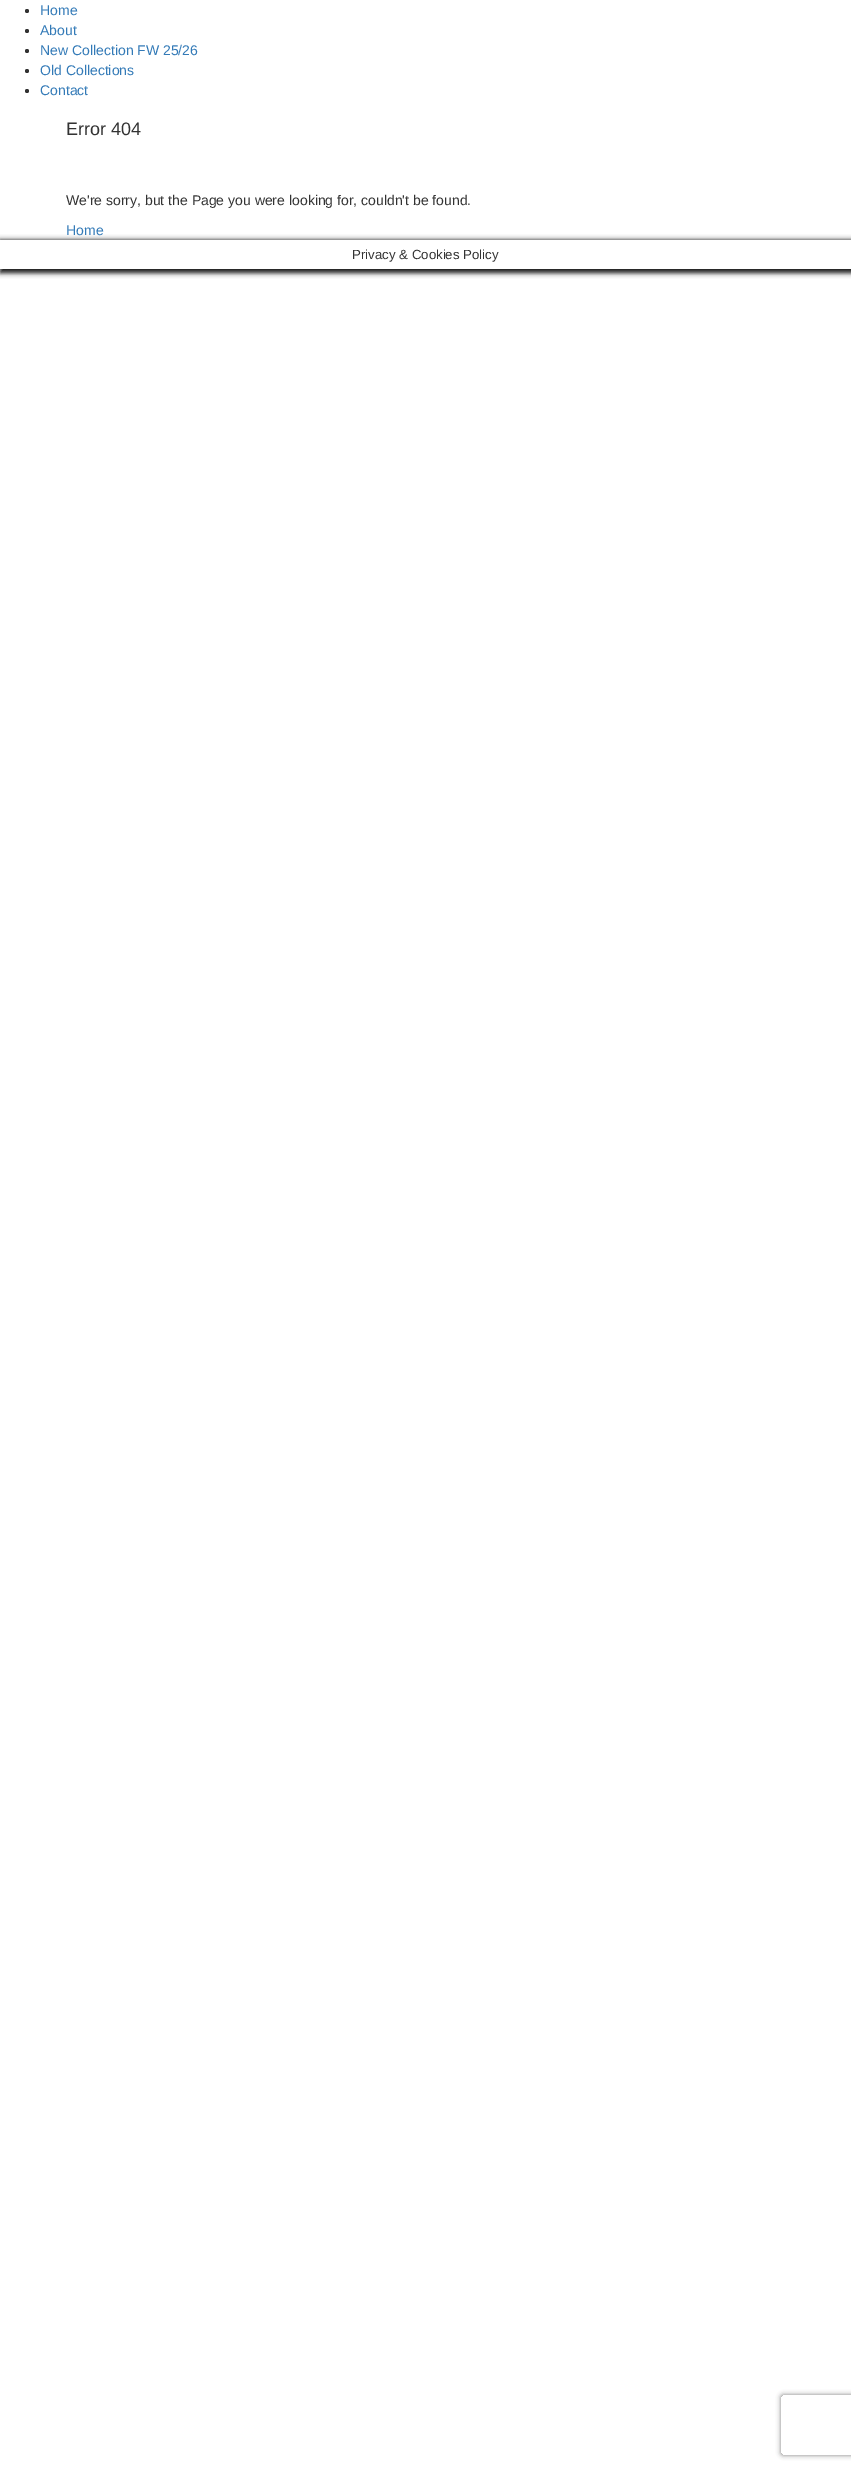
%!PS-Adobe-3.0
%%BoundingBox: 0 0 851 2469
%%LanguageLevel: 3
%%Pages: 1
%%EndComments
%%BeginProlog
/setink { dup -16 bitshift 255 div exch dup -8 bitshift 255 and 255 div exch 255 and 255 div setrgbcolor } def
/usefont { [ exch dup neg 0 0 3 -1 roll 0 0 ] selectfont } def
/setalpha { dup .setfillconstantalpha .setstrokeconstantalpha } def
/disc { newpath 0 360 arc closepath } def
/rrect { 5 dict begin { /r /h /w /y /x } { exch def } forall
  x r add y moveto x w add y 2 copy h add r arct x w add y h add x 1 index r arct
  x y h add x y r arct x y 2 copy exch w add exch r arct closepath end } def
/softshadow { 12 dict begin { /a /b /q /h /w /y /x } { exch def } forall gsave /was 0 def
  9 -2 -9 { dup b mul 4 div /e exch def 1 sub .425 mul 2.718 exch exp 1 add a .99 .min exch div /now exch def
    1 1 now sub 1 was sub div sub setalpha /was now def
    w h .min e 2 mul add 0 gt { x e sub y e sub w e 2 mul add h e 2 mul add
      q e add b .6 mul add w h .min 2 div e add .min 0 .max rrect fill } if } for grestore end } def
%%EndProlog
%%BeginSetup
<< /PageSize [851 2469] /PageUsesTransparency true >> setpagedevice
%%EndSetup
%%Page: 1 1
0 .pushpdf14devicefilter
0 2469 translate 1 -1 scale
4 setmiterlimit
16#FFFFFF setink
0 0 851 2469 rectfill
16#333333 setink
27 11 2 disc fill
/LiberationSans-Regular 14 usefont
16#337AB7 setink
40 15 moveto (Home) show
16#333333 setink
27 31 2 disc fill
16#337AB7 setink
40 35 moveto (About) show
16#333333 setink
27 51 2 disc fill
16#337AB7 setink
40 55 moveto (New Collection FW 25/26) show
16#333333 setink
27 71 2 disc fill
16#337AB7 setink
40 75 moveto (Old Collections) show
16#333333 setink
27 91 2 disc fill
16#337AB7 setink
40 95 moveto (Contact) show
/LiberationSans-Regular 18 usefont
16#333333 setink
66 135 moveto (Error 404) show
/LiberationSans-Regular 14 usefont
66 205 moveto (We're sorry, but the Page you were looking for, couldn't be found.) show
gsave
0 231 moveto 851 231 lineto 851 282 lineto 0 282 lineto closepath 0 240 moveto 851 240 lineto 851 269 lineto 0 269 lineto closepath eoclip newpath
16#161616 setink
0 240 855 33 0 2.5 1 softshadow
grestore
16#337AB7 setink
66 235 moveto (Home) show
/LiberationSans-Regular 13.25 usefont
16#333333 setink
352 259 moveto (Privacy & Cookies Policy) show
gsave
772 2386 moveto 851 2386 lineto 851 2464 lineto 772 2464 lineto closepath 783 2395 moveto 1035 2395 lineto 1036 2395 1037 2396 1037 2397 curveto 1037 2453 lineto 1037 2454 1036 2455 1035 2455 curveto 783 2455 lineto 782 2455 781 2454 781 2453 curveto 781 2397 lineto 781 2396 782 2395 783 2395 curveto closepath eoclip newpath
16#808080 setink
781 2395 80 60 2 2.5 1 softshadow
grestore
.poppdf14devicefilter showpage
%%EOF
